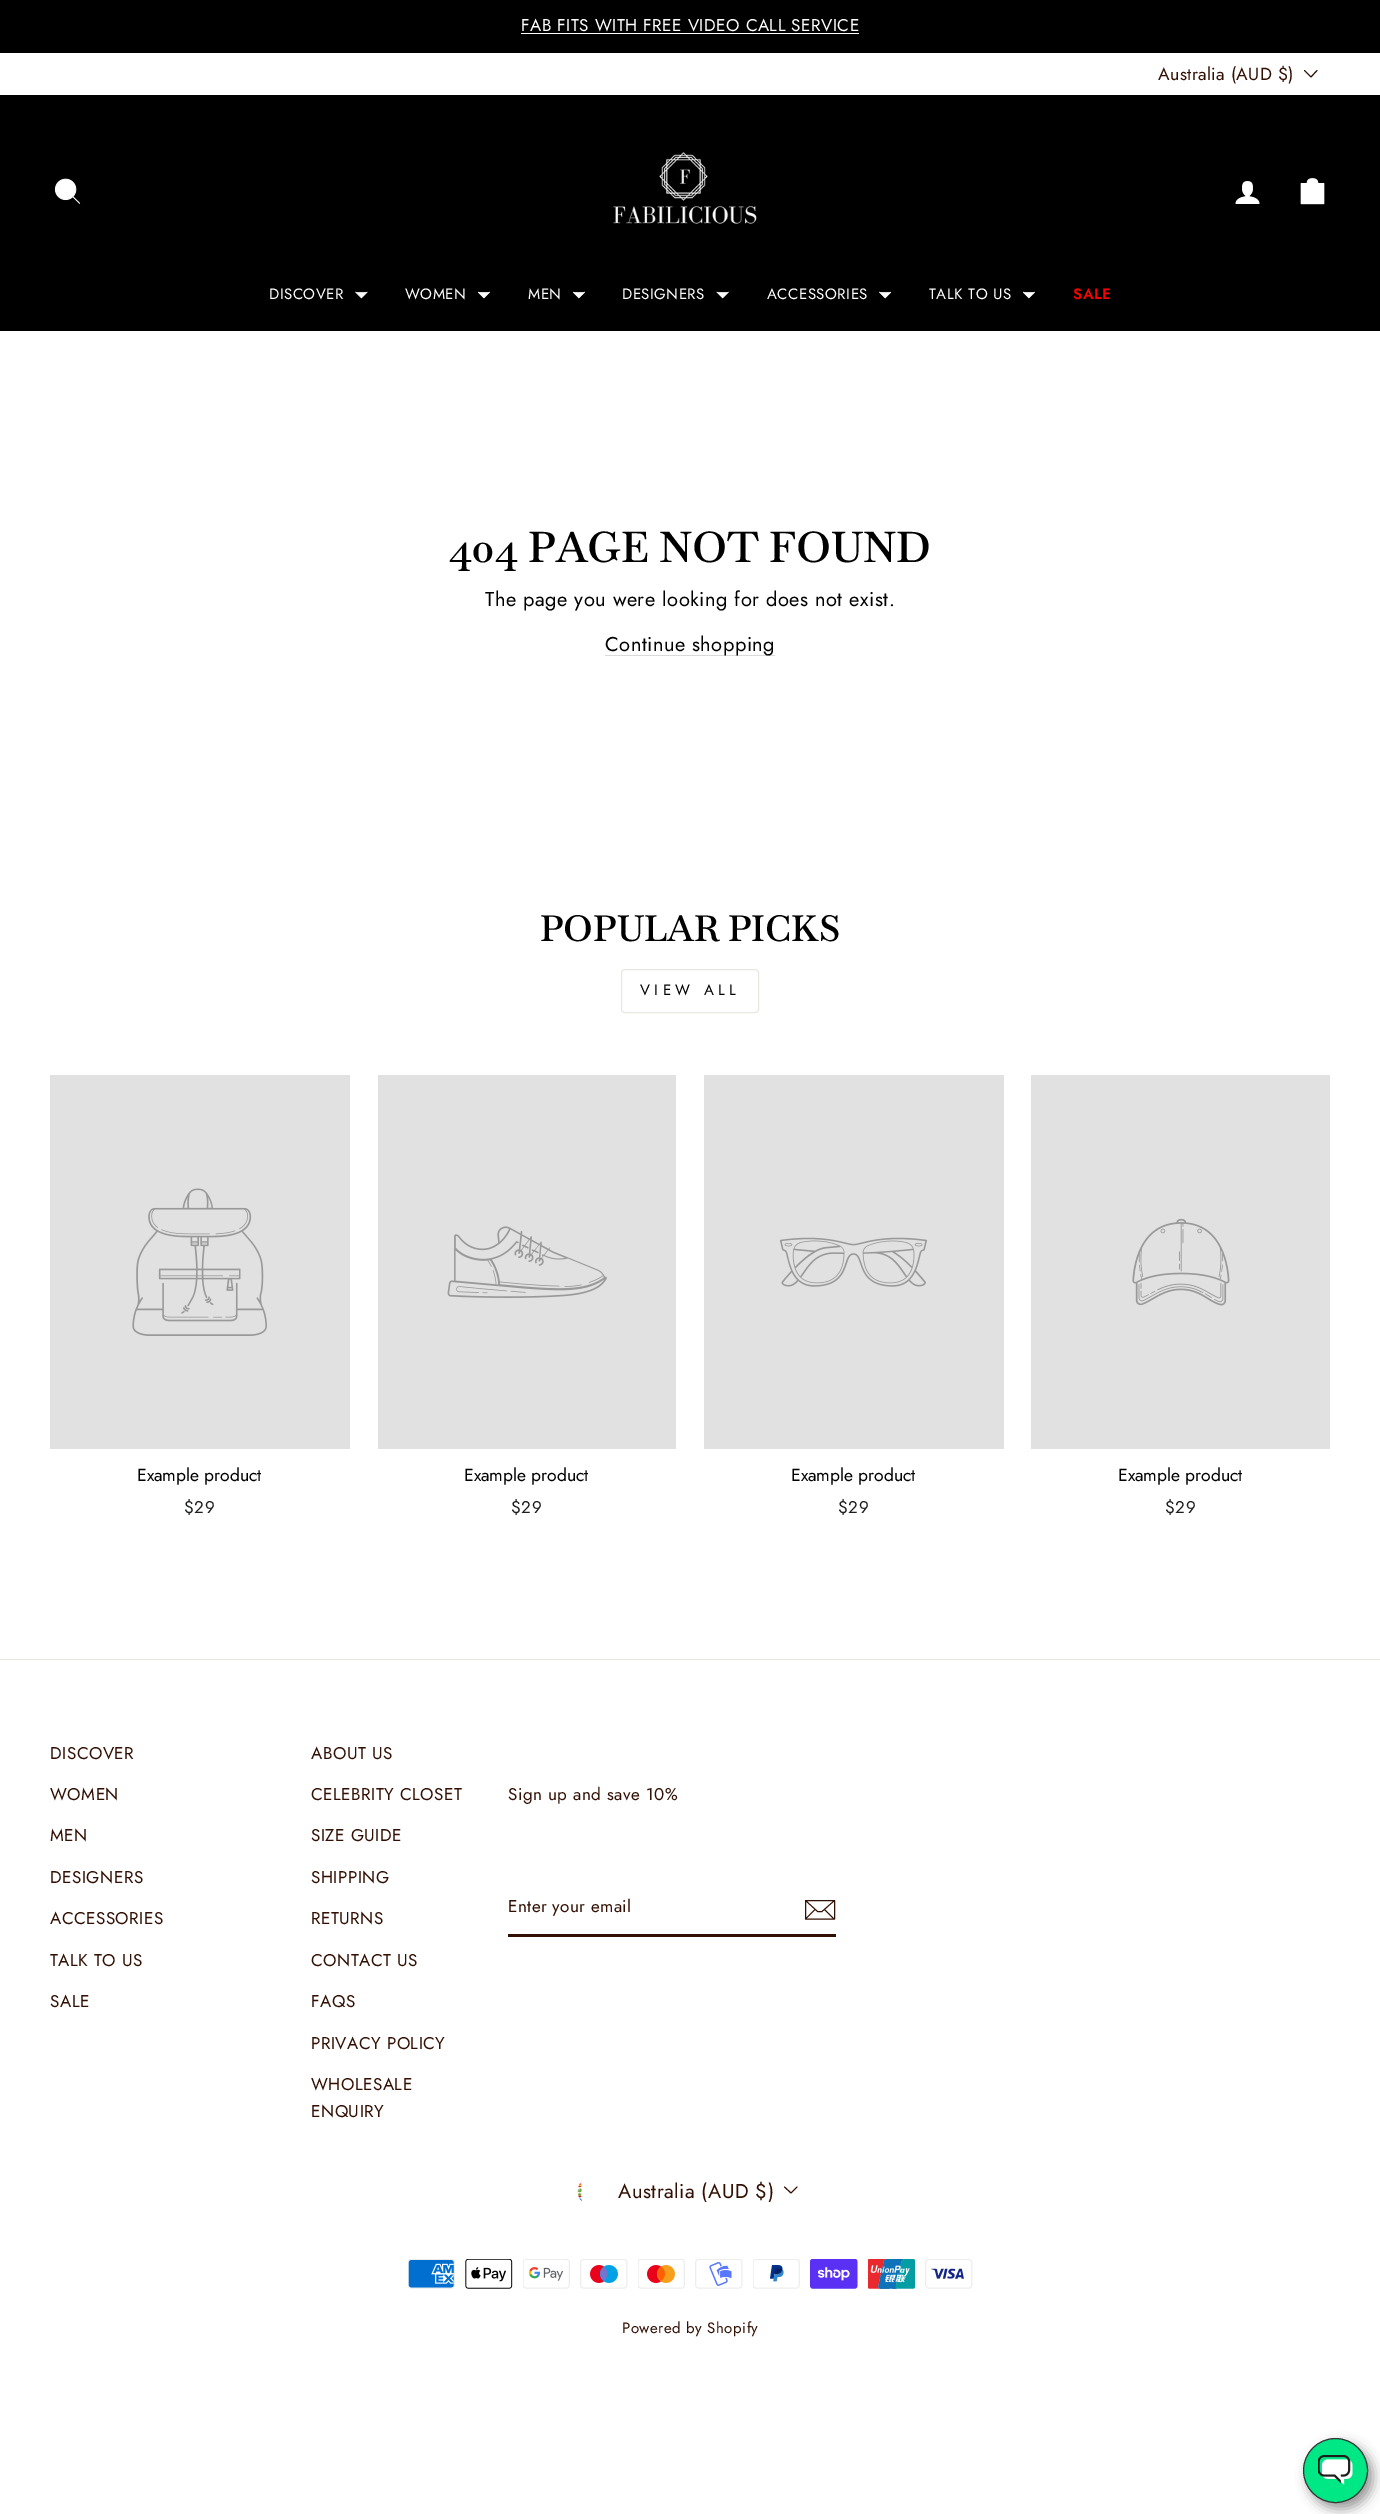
%!PS-Adobe-3.0
%%BoundingBox: 0 0 1380 2514
%%LanguageLevel: 3
%%Pages: 1
%%EndComments
%%BeginProlog
/setink { dup -16 bitshift 255 div exch dup -8 bitshift 255 and 255 div exch 255 and 255 div setrgbcolor } def
/usefont { [ exch dup neg 0 0 3 -1 roll 0 0 ] selectfont } def
/setalpha { dup .setfillconstantalpha .setstrokeconstantalpha } def
/disc { newpath 0 360 arc closepath } def
/rrect { 5 dict begin { /r /h /w /y /x } { exch def } forall
  x r add y moveto x w add y 2 copy h add r arct x w add y h add x 1 index r arct
  x y h add x y r arct x y 2 copy exch w add exch r arct closepath end } def
/softshadow { 12 dict begin { /a /b /q /h /w /y /x } { exch def } forall gsave /was 0 def
  9 -2 -9 { dup b mul 4 div /e exch def 1 sub .425 mul 2.718 exch exp 1 add a .99 .min exch div /now exch def
    1 1 now sub 1 was sub div sub setalpha /was now def
    w h .min e 2 mul add 0 gt { x e sub y e sub w e 2 mul add h e 2 mul add
      q e add b .6 mul add w h .min 2 div e add .min 0 .max rrect fill } if } for grestore end } def
/drawimage { 5 dict begin { /h /w /y /x /name } { exch def } forall
  gsave x y translate w h scale
  w h 8 [w 0 0 h 0 0] name (r) file false 3 colorimage grestore end } def
%%EndProlog
%%BeginSetup
<< /PageSize [1380 2514] /PageUsesTransparency true >> setpagedevice
%%EndSetup
%%Page: 1 1
0 .pushpdf14devicefilter
0 2514 translate 1 -1 scale
4 setmiterlimit
16#FFFFFF setink
0 0 1380 2514 rectfill
16#000000 setink
0 0 1380 53 rectfill
/Jost-Regular 17 usefont
16#FFFFFF setink
521 31 moveto 0.5 0 (FAB FITS WITH FREE VIDEO CALL SERVICE) ashow
521 33 338 1 rectfill
/Jost-Regular 17.5 usefont
16#321004 setink
1158 80 moveto 0.4 0 (Australia \(AUD $\)) ashow
1 setlinecap
1 setlinejoin
1304.5 70.5 moveto 1311 77 lineto 1317 70.5 lineto stroke
16#000000 setink
0 95 1380 236 rectfill
(img1.raw) 54 178 27 26 drawimage
(img2.raw) 613 152 144 72 drawimage
(img3.raw) 1235 181 25 23 drawimage
(img4.raw) 1300 178 25 27 drawimage
/Jost-Regular 15 usefont
16#FFFFFF setink
269 299 moveto 0.5 0 (DISCOVER) ashow
(img5.raw) 355 291 13 8 drawimage
405 299 moveto 0.5 0 (WOMEN) ashow
(img6.raw) 478 291 12 8 drawimage
528 299 moveto 0.5 0 (MEN) ashow
(img6.raw) 573 291 12 8 drawimage
622 299 moveto 0.5 0 (DESIGNERS) ashow
(img7.raw) 716 291 13 8 drawimage
767 299 moveto 0.5 0 (ACCESSORIES) ashow
(img8.raw) 879 291 12 8 drawimage
929 299 moveto 0.5 0 (TALK TO US) ashow
(img6.raw) 1023 291 12 8 drawimage
/Jost-SemiBold 15 usefont
16#FF0000 setink
1073 299 moveto 0.5 0 (SALE) ashow
/Baskervville-SemiBold 42.5 usefont
16#000000 setink
448 562 moveto (404 PAGE NOT FOUND) show
/Jost-Regular 20 usefont
485 606 moveto 0.5 0 (The page you were looking for does not exist.) ashow
16#D9D9D9 setink
605 655 170 1 rectfill
16#000000 setink
605 651 moveto 0.5 0 (Continue shopping) ashow
/Baskervville-SemiBold 36 usefont
540 941 moveto (POPULAR PICKS) show
16#E8E8E1 setink
0 setlinecap
0 setlinejoin
621.5 969.5 137 43 3.5 rrect stroke
/Jost-Regular 15 usefont
16#000000 setink
640 995 moveto 4.5 0 (VIEW ALL) ashow
16#E1E1E1 setink
50 1075 300 374 rectfill
(img9.raw) 132 1188 135 148 drawimage
/Jost-Regular 17.5 usefont
16#000000 setink
137 1481 moveto (Example product) show
/Jost-Regular 17 usefont
16#1C1D1D setink
184 1513 moveto 0.5 0 ($29) ashow
16#E1E1E1 setink
378 1075 298 374 rectfill
(img10.raw) 447 1226 160 72 drawimage
/Jost-Regular 17.5 usefont
16#000000 setink
464 1481 moveto (Example product) show
/Jost-Regular 17 usefont
16#1C1D1D setink
511 1513 moveto 0.5 0 ($29) ashow
16#E1E1E1 setink
704 1075 300 374 rectfill
(img11.raw) 780 1237 147 50 drawimage
/Jost-Regular 17.5 usefont
16#000000 setink
791 1481 moveto (Example product) show
/Jost-Regular 17 usefont
16#1C1D1D setink
838 1513 moveto 0.5 0 ($29) ashow
16#E1E1E1 setink
1031 1075 299 374 rectfill
(img12.raw) 1132 1218 98 88 drawimage
/Jost-Regular 17.5 usefont
16#000000 setink
1118 1481 moveto (Example product) show
/Jost-Regular 17 usefont
16#1C1D1D setink
1165 1513 moveto 0.5 0 ($29) ashow
16#E8E8E1 setink
0 1659 1380 1 rectfill
16#321004 setink
50 1759 moveto 0.5 0 (DISCOVER) ashow
50 1800 moveto 0.5 0 (WOMEN) ashow
50 1841 moveto 0.5 0 (MEN) ashow
50 1883 moveto 0.5 0 (DESIGNERS) ashow
50 1924 moveto 0.5 0 (ACCESSORIES) ashow
50 1966 moveto 0.5 0 (TALK TO US) ashow
50 2007 moveto 0.5 0 (SALE) ashow
311 1759 moveto 0.5 0 (ABOUT US) ashow
311 1800 moveto 0.5 0 (CELEBRITY CLOSET) ashow
311 1841 moveto 0.5 0 (SIZE GUIDE) ashow
311 1883 moveto 0.5 0 (SHIPPING) ashow
311 1924 moveto 0.5 0 (RETURNS) ashow
311 1966 moveto 0.5 0 (CONTACT US) ashow
311 2007 moveto 0.5 0 (FAQS) ashow
311 2049 moveto 0.5 0 (PRIVACY POLICY) ashow
311 2090 moveto 0.5 0 (WHOLESALE) ashow
311 2117 moveto 0.5 0 (ENQUIRY) ashow
508 1800 moveto 0.5 0 (Sign up and save 10%) ashow
508 1934 328 3 rectfill
508 1912 moveto 0.4 0 (Enter your email) ashow
0.9 setlinewidth
1 setlinecap
1 setlinejoin
834.5 1919 moveto 805.5 1919 lineto 805.5 1900.5 lineto 834.5 1900.5 lineto closepath 805.5 1900.5 moveto 817.5 1911.5 lineto 822 1911.5 lineto 834.5 1900.5 lineto 815 1909.5 moveto 805.5 1919 lineto 834 1919 moveto 824.5 1909.5 lineto stroke
(img13.raw) 577 2181 5 21 drawimage
/Jost-Regular 20 usefont
618 2198 moveto 0.5 0 (Australia \(AUD $\)) ashow
1 setlinewidth
784.5 2187 moveto 791 2193 lineto 797 2187 lineto stroke
(img14.raw) 408 2259 47 30 drawimage
(img15.raw) 465 2259 48 30 drawimage
(img16.raw) 523 2259 47 30 drawimage
(img17.raw) 580 2259 48 30 drawimage
(img18.raw) 638 2259 47 30 drawimage
(img19.raw) 695 2259 48 30 drawimage
(img20.raw) 753 2259 47 30 drawimage
(img21.raw) 810 2259 48 30 drawimage
(img22.raw) 868 2259 47 30 drawimage
(img23.raw) 925 2259 48 30 drawimage
/Jost-Regular 15 usefont
622 2333 moveto 0.5 0 (Powered by Shopify) ashow
16#000000 setink
1308 2444 65 65 32.5 6 0.4 softshadow
16#00E785 setink
1335.5 2470.5 32 disc gsave fill grestore
16#363636 setink
0 setlinecap
0 setlinejoin
stroke
(img24.raw) 1318 2455 35 30 drawimage
.poppdf14devicefilter showpage
%%EOF
